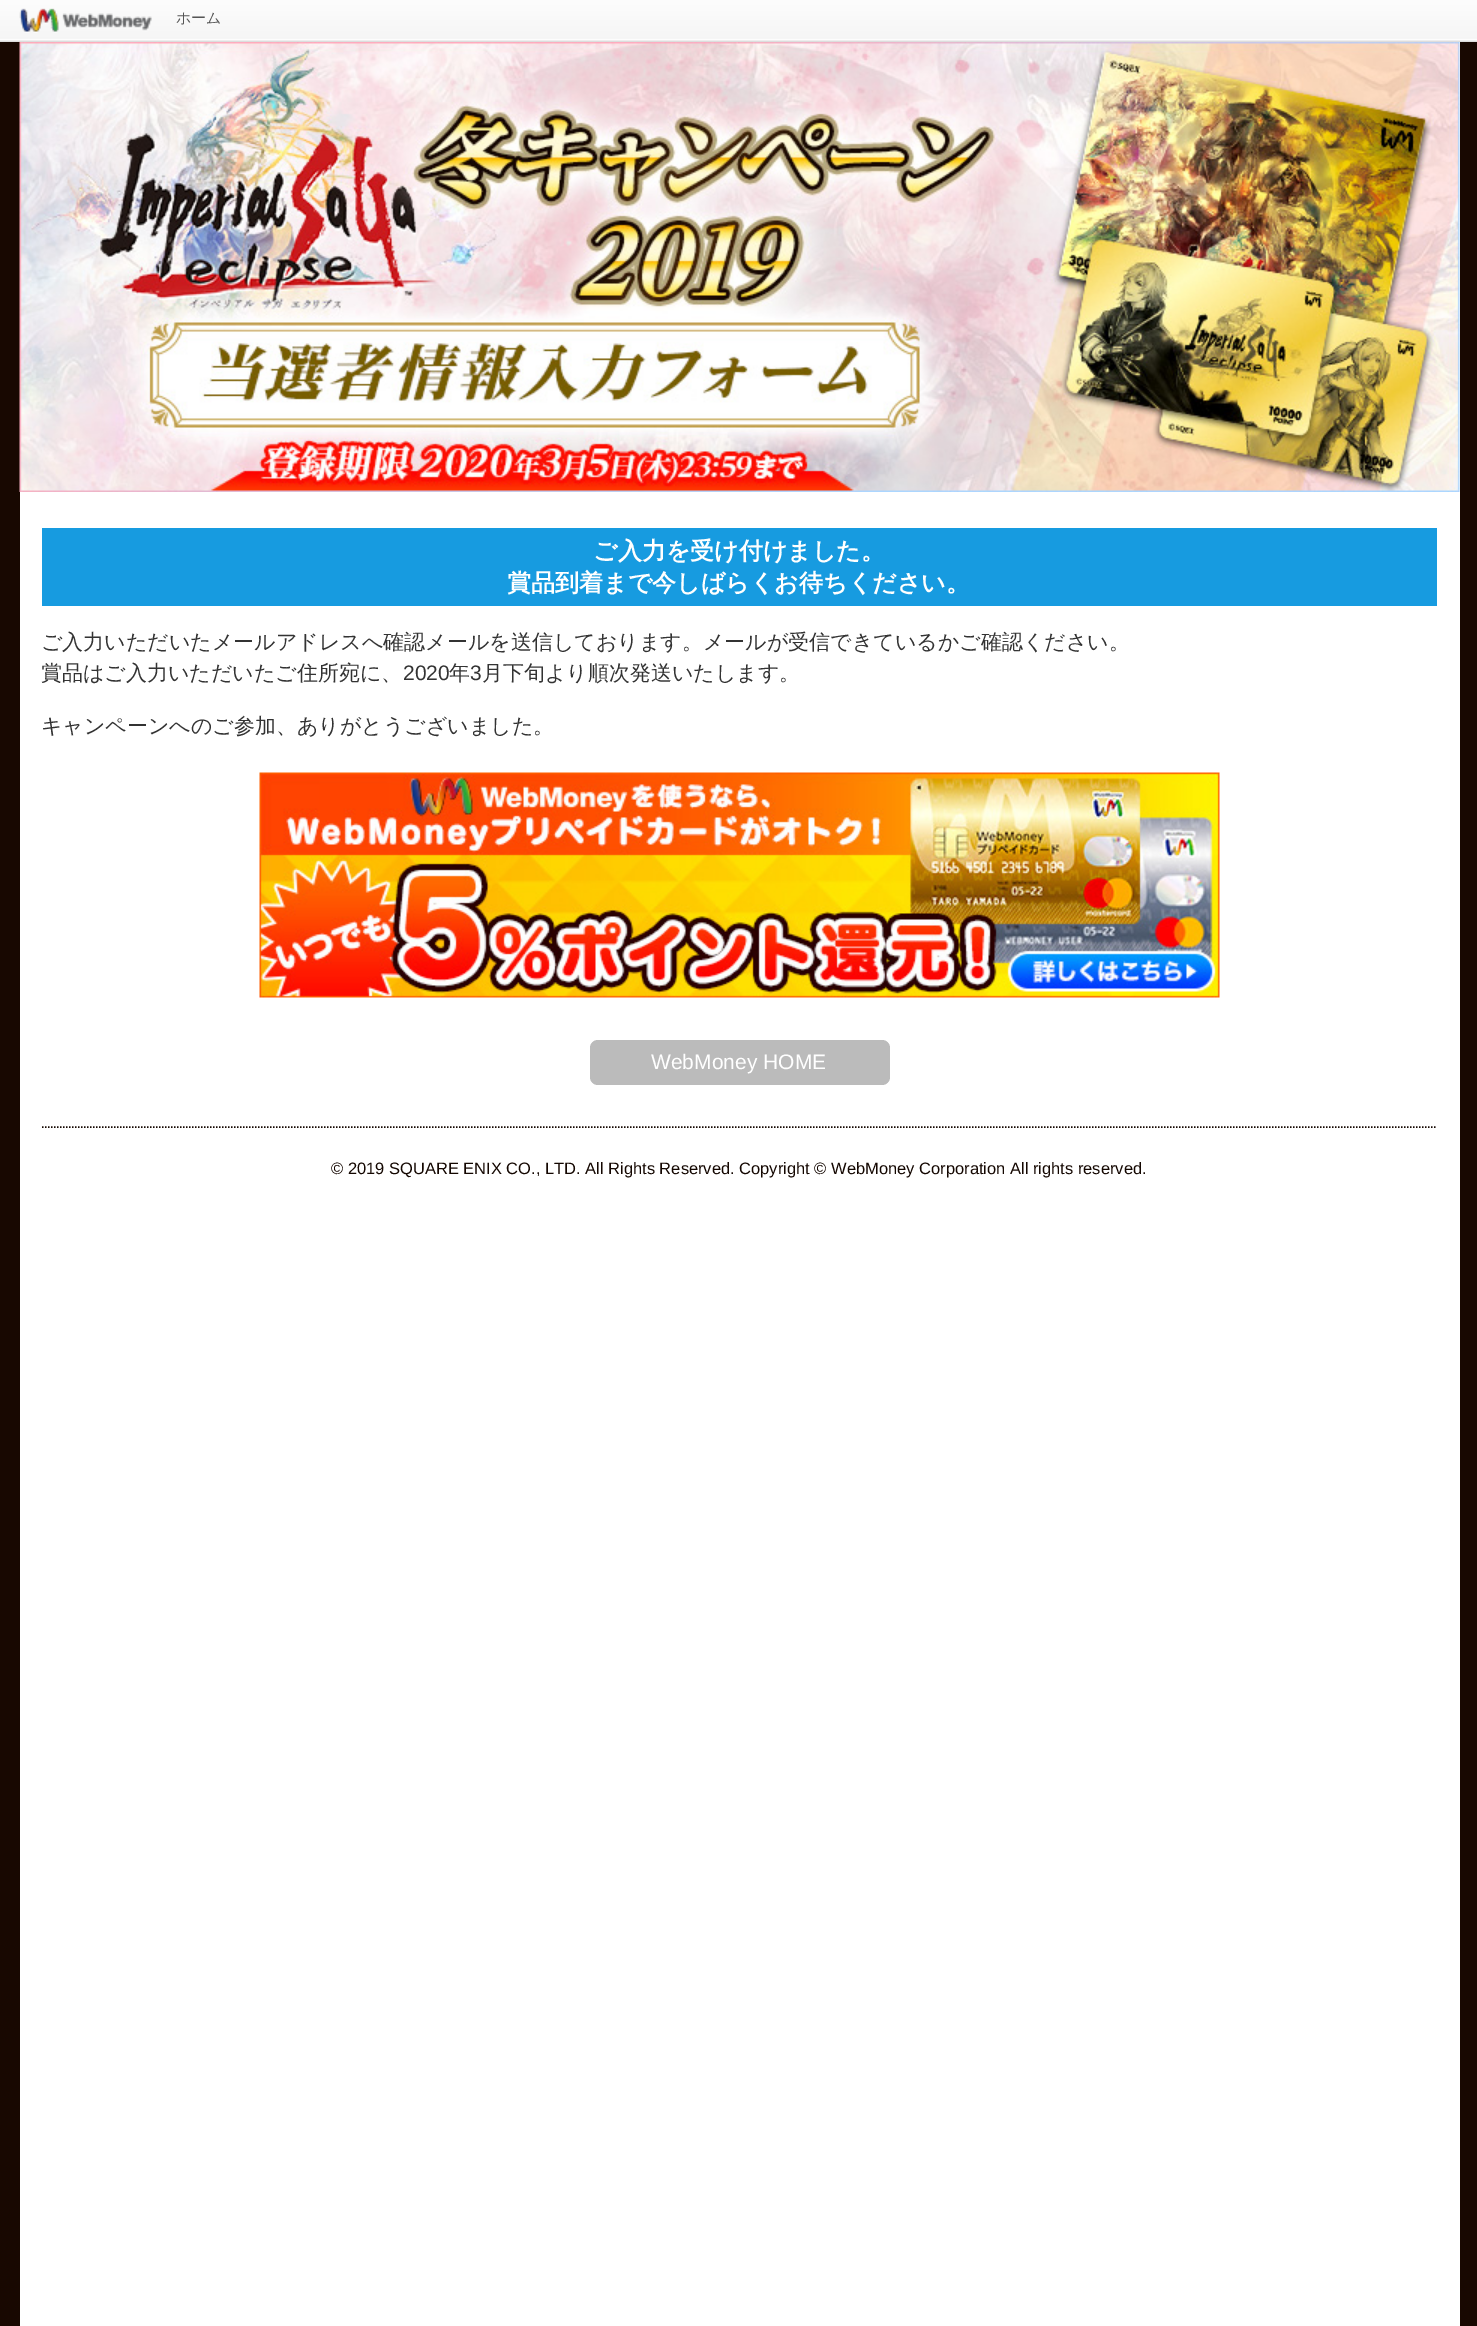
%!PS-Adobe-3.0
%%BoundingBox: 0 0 1477 2326
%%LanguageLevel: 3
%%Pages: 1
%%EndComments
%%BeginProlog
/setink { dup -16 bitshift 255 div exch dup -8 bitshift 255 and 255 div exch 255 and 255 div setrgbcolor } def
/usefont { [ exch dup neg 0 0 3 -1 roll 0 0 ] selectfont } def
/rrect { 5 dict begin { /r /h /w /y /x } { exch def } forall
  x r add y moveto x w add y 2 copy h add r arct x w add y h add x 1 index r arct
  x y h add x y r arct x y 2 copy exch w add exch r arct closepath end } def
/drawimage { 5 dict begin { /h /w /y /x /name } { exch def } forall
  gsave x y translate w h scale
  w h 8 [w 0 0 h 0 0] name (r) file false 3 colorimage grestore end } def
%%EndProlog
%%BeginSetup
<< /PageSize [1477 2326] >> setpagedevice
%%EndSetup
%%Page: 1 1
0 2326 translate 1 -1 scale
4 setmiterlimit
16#180801 setink
0 0 1477 2326 rectfill
(img1.raw) 0 0 1477 42 drawimage
(img2.raw) 19 8 133 25 drawimage
/WenQuanYiZenHei-Medium 15 usefont
16#555555 setink
176 23 moveto (ホーム) show
16#FFFFFF setink
20 42 1440 2284 rectfill
(img3.raw) 19 42 1441 450 drawimage
16#179BE0 setink
42 528 1395 78 rectfill
/WenQuanYiZenHei-Bold 24 usefont
16#FFFFFF setink
593 559 moveto (ご入力を受け付けました。) show
507 591 moveto (賞品到着まで今しばらくお待ちください。) show
/WenQuanYiZenHei-Medium 21 usefont
16#333333 setink
41 649 moveto (ご入力いただいたメールアドレスへ確認メールを送信しております。メールが受信できているかご確認ください。) show
41 680 moveto (賞品はご入力いただいたご住所宛に、) show
/LiberationSans-Regular 21 usefont
403 680 moveto (2020) show
/WenQuanYiZenHei-Medium 21 usefont
449 680 moveto (年) show
/LiberationSans-Regular 21 usefont
470 680 moveto (3) show
/WenQuanYiZenHei-Medium 21 usefont
482 680 moveto (月下旬より順次発送いたします。) show
41 733 moveto (キャンペーンへのご参加、ありがとうございました。) show
(img4.raw) 259 772 961 226 drawimage
16#BBBBBB setink
590 1040 300 45 8 rrect fill
/LiberationSans-Regular 21 usefont
16#FFFFFF setink
651 1069 moveto (WebMoney HOME) show
16#140701 setink
1.5 setlinewidth
[1.5 1.5] 0 setdash
42 1127 moveto 1437 1127 lineto stroke
/LiberationSans-Regular 16.5 usefont
331 1174 moveto (© 2019 SQUARE ENIX CO., LTD. All Rights Reserved. Copyright © WebMoney Corporation All rights reserved.) show
showpage
%%EOF
